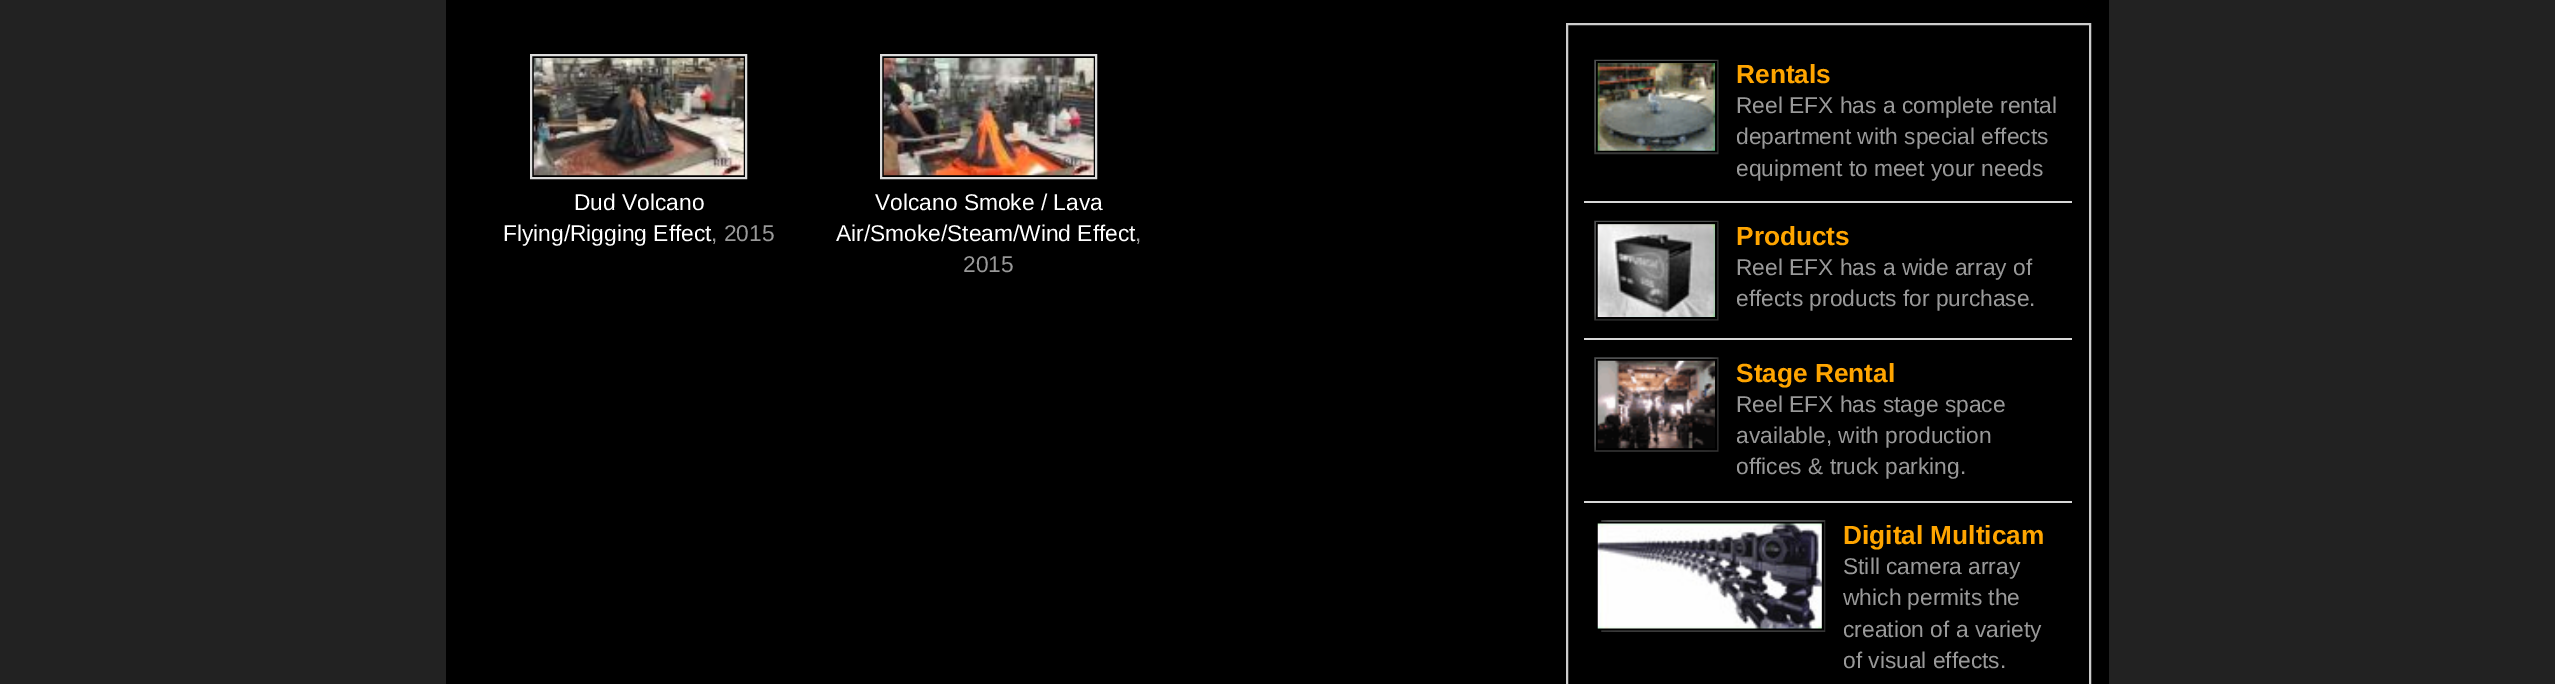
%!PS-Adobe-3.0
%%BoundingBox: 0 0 2555 684
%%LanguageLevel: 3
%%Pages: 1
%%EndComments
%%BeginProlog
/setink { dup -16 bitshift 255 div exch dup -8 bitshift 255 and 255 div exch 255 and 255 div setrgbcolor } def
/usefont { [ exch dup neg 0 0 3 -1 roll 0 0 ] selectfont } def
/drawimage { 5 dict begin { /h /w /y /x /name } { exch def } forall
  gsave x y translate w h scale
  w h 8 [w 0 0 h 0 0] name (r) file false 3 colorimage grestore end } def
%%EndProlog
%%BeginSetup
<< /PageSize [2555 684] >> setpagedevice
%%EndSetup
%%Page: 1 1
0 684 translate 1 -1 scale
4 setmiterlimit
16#222222 setink
0 0 2555 684 rectfill
16#000000 setink
446 0 1663 684 rectfill
16#DDDDDD setink
2 setlinewidth
531 55 215 123 rectstroke
(img1.raw) 533 58 211 118 drawimage
/LiberationSans-Regular 22.75 usefont
16#FFFFFF setink
574 210 moveto (Dud Volcano) show
503 241 moveto (Flying/Rigging Effect) show
16#999999 setink
711 241 moveto (, 2015) show
16#DDDDDD setink
881 55 215 123 rectstroke
(img2.raw) 883 58 211 118 drawimage
16#FFFFFF setink
875 210 moveto (Volcano Smoke / Lava) show
836 241 moveto (Air/Smoke/Steam/Wind Effect) show
16#999999 setink
1135 241 moveto (,) show
963 272 moveto (2015) show
16#CCCCCC setink
1567 24 523 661 rectstroke
(img3.raw) 1594 59 125 96 drawimage
16#000000 setink
1597 62 119 89 rectstroke
(img4.raw) 1597 63 118 88 drawimage
16#D8D8D8 setink
1584 201 488 2 rectfill
/LiberationSans-Bold 26.25 usefont
16#FFA500 setink
1736 83 moveto (Rentals) show
/LiberationSans-Regular 22.75 usefont
16#999999 setink
[
    [(Reel EFX has a complete rental) 1736 113]
    [(department with special effects) 1736 144]
    [(equipment to meet your needs) 1736 176]
] { aload pop moveto show } forall
(img5.raw) 1594 220 125 101 drawimage
16#000000 setink
1597 223 119 95 rectstroke
(img6.raw) 1597 224 118 93 drawimage
16#D8D8D8 setink
1584 338 488 2 rectfill
/LiberationSans-Bold 26.25 usefont
16#FFA500 setink
1736 245 moveto (Products) show
/LiberationSans-Regular 22.75 usefont
16#999999 setink
1736 275 moveto (Reel EFX has a wide array of) show
1736 306 moveto (effects products for purchase.) show
(img7.raw) 1594 357 125 95 drawimage
16#000000 setink
1597 360 119 89 rectstroke
(img8.raw) 1597 360 118 89 drawimage
16#D8D8D8 setink
1584 501 488 2 rectfill
/LiberationSans-Bold 26.25 usefont
16#FFA500 setink
1736 382 moveto (Stage Rental) show
/LiberationSans-Regular 22.75 usefont
16#999999 setink
[
    [(Reel EFX has stage space) 1736 412]
    [(available, with production) 1736 443]
    [(offices & truck parking.) 1736 474]
] { aload pop moveto show } forall
(img9.raw) 1601 520 225 112 drawimage
16#000000 setink
1597 523 226 106 rectstroke
(img10.raw) 1597 523 225 106 drawimage
/LiberationSans-Bold 26.25 usefont
16#FFA500 setink
1843 544 moveto (Digital Multicam) show
/LiberationSans-Regular 22.75 usefont
16#999999 setink
[
    [(Still camera array) 1843 574]
    [(which permits the) 1843 605]
    [(creation of a variety) 1843 637]
    [(of visual effects.) 1843 668]
] { aload pop moveto show } forall
showpage
%%EOF
